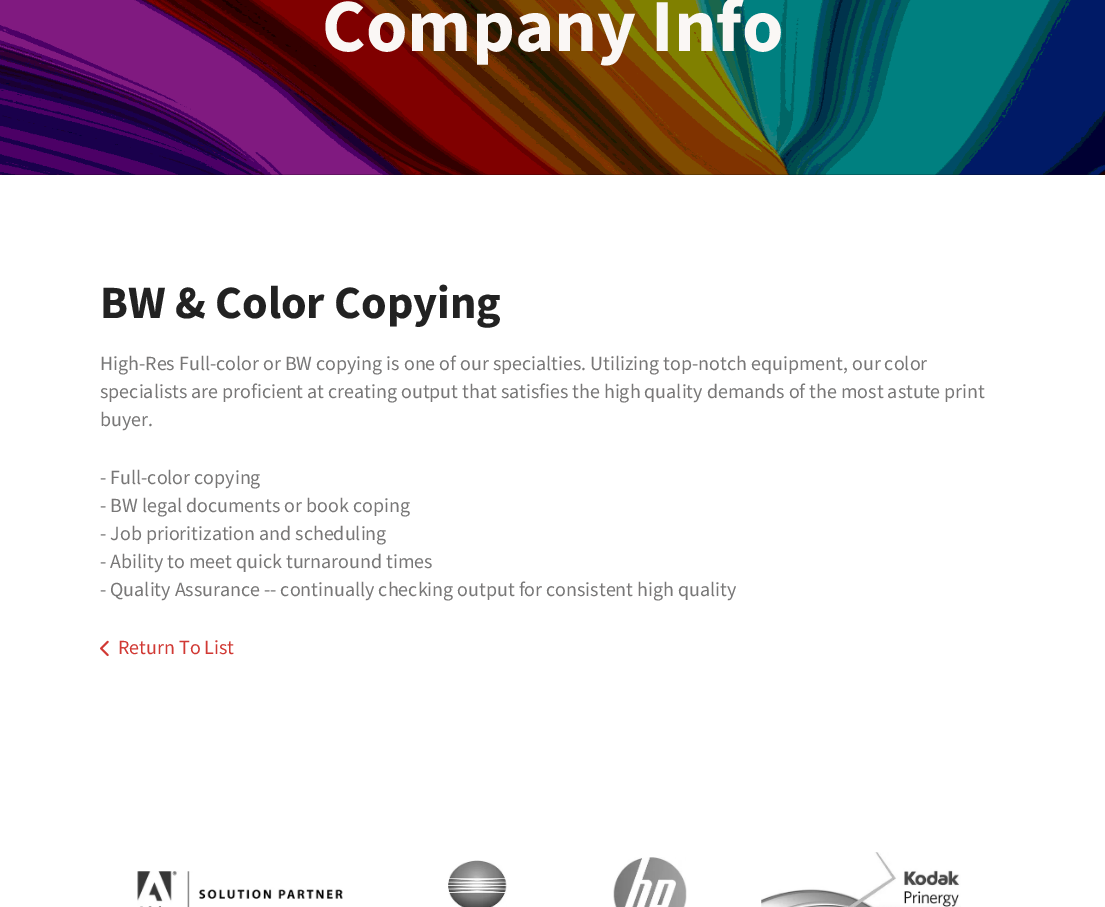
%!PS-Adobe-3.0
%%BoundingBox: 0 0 1105 907
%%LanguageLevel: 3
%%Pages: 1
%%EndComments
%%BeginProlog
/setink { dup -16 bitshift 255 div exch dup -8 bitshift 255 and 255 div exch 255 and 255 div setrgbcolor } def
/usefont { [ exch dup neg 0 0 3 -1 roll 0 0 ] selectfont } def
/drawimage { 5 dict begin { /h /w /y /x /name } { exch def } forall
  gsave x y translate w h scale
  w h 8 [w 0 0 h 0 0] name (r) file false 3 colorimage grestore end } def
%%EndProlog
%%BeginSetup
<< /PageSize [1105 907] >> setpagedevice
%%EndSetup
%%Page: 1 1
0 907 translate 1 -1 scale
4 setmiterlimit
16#FFFFFF setink
0 0 1105 907 rectfill
(img1.raw) 0 0 1105 175 drawimage
/SourceSans3-Bold 75 usefont
16#FAF7F5 setink
322 51 moveto (Company Info) show
/SourceSans3-Bold 46.25 usefont
16#222222 setink
100 318 moveto (BW & Color Copying) show
/SourceSans3-Regular 20 usefont
16#787777 setink
[
    [(High-Res Full-color or BW copying is one of our specialties. Utilizing top-notch equipment, our color) 100 370]
    [(specialists are proficient at creating output that satisfies the high quality demands of the most astute print) 100 398]
    [(buyer.) 100 426]
    [(- Full-color copying) 100 484]
    [(- BW legal documents or book coping) 100 512]
    [(- Job prioritization and scheduling) 100 540]
    [(- Ability to meet quick turnaround times) 100 568]
    [(- Quality Assurance -- continually checking output for consistent high quality) 100 596]
] { aload pop moveto show } forall
(img2.raw) 100 640 9 17 drawimage
16#D13934 setink
118 654 moveto (Return To List) show
(img3.raw) 137 871 206 36 drawimage
(img4.raw) 448 860 59 47 drawimage
(img5.raw) 613 857 74 50 drawimage
(img6.raw) 761 852 200 55 drawimage
showpage
%%EOF
